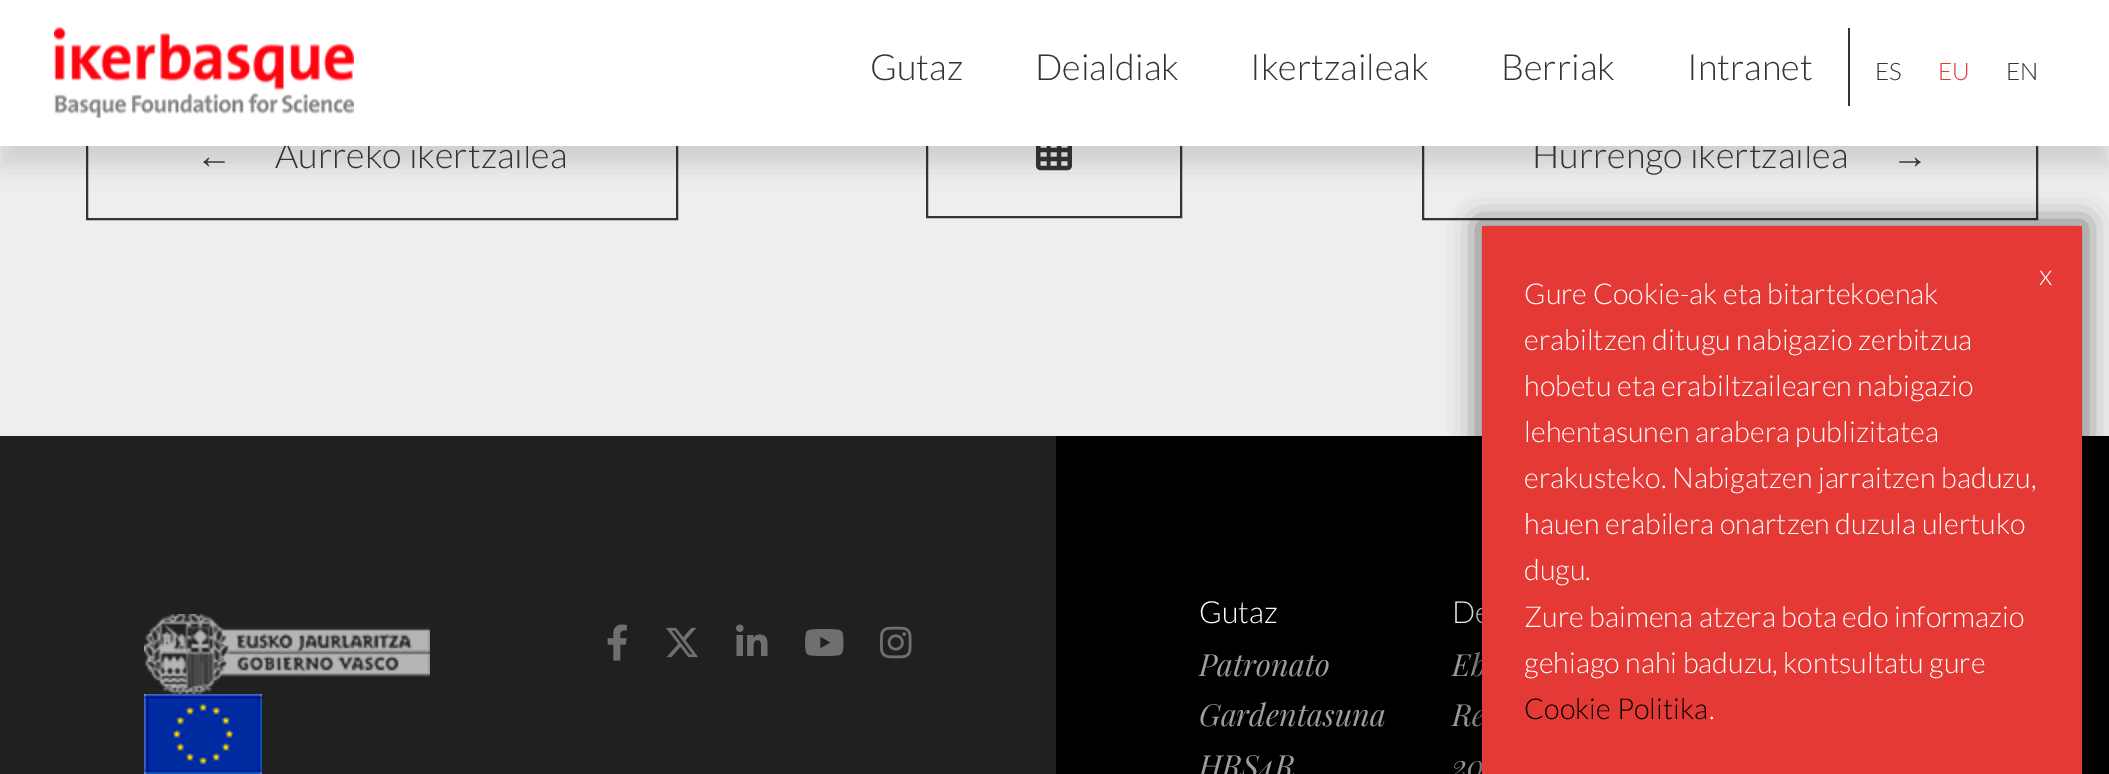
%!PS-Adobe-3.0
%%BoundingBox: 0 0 2109 774
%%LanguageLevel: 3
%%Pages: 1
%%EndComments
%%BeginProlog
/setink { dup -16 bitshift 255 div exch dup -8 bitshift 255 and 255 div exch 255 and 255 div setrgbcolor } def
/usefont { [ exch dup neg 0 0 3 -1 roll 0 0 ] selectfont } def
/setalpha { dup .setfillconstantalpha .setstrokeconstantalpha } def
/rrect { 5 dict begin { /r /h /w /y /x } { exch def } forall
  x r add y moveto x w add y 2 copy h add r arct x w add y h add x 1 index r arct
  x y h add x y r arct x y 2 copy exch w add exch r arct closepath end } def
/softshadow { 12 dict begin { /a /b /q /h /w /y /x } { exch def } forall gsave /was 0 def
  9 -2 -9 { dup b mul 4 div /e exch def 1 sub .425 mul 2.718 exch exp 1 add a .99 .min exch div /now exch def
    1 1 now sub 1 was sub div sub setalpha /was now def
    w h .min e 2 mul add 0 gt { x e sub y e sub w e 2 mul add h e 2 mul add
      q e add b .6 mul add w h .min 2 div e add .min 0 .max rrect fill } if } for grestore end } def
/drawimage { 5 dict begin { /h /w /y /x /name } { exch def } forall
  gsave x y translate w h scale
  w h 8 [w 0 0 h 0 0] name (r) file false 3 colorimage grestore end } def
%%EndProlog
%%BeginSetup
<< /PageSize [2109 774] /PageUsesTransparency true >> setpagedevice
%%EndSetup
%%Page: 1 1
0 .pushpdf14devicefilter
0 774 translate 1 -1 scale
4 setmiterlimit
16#EEEEEE setink
0 0 2109 774 rectfill
16#343434 setink
2 setlinewidth
87 93 590 126 rectstroke
927 93 254 124 rectstroke
(img2.raw) 1036 146 36 25 drawimage
1423 93 614 126 rectstroke
16#000000 setink
0 20 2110 146 0 11 0.12 softshadow
/Lato-Light 36 usefont
16#343434 setink
275 168 moveto (Aurreko ikertzailea) show
1532 168 moveto (Hurrengo ikertzailea) show
16#FFFFFF setink
0 0 2109 146 rectfill
(img1.raw) 54 27 300 91 drawimage
16#343434 setink
1848 28 2 78 rectfill
[
    [(Gutaz) 870 80]
    [(Deialdiak) 1035 80]
    [(Ikertzaileak) 1250 80]
    [(Berriak) 1501 80]
    [(Intranet) 1687 80]
] { aload pop moveto show } forall
/Lato-Light 24 usefont
1875 80 moveto (ES) show
16#E53935 setink
1938 80 moveto (EU) show
16#343434 setink
2006 80 moveto (EN) show
/LiberationSans-Regular 36 usefont
196 168 moveto (←) show
1892 168 moveto (→) show
16#000000 setink
1056 436 1053 338 rectfill
/Lato-Light 30.5 usefont
16#FFFFFF setink
1199 623 moveto (Gutaz) show
/PlayfairDisplay-Italic 30.5 usefont
16#9E9E9E setink
[
    [(Patronato) 1199 676]
    [(Gardentasuna) 1199 726]
    [(HRS4R) 1199 777]
] { aload pop moveto show } forall
/Lato-Light 30.5 usefont
16#FFFFFF setink
1452 623 moveto (De) show
/PlayfairDisplay-Italic 30.5 usefont
16#9E9E9E setink
[
    [(Eb) 1452 676]
    [(Re) 1452 726]
    [(20) 1452 777]
] { aload pop moveto show } forall
16#202020 setink
0 436 1056 338 rectfill
(img3.raw) 144 614 286 80 drawimage
(img4.raw) 144 694 118 80 drawimage
(img5.raw) 607 624 20 37 drawimage
(img6.raw) 666 627 32 31 drawimage
(img7.raw) 736 624 32 32 drawimage
(img8.raw) 805 629 39 27 drawimage
(img9.raw) 880 626 32 33 drawimage
16#000000 setink
1478 222 608 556 0 14 0.52 softshadow
16#E53935 setink
1482 226 600 548 rectfill
/Lato-Light 28.75 usefont
16#FFFFFF setink
[
    [(x) 2039 285]
    [(Gure Cookie-ak eta bitartekoenak) 1524 304]
    [(erabiltzen ditugu nabigazio zerbitzua) 1524 350]
    [(hobetu eta erabiltzailearen nabigazio) 1524 396]
    [(lehentasunen arabera publizitatea) 1524 442]
    [(erakusteko. Nabigatzen jarraitzen baduzu,) 1524 488]
    [(hauen erabilera onartzen duzula ulertuko) 1524 534]
    [(dugu.) 1524 580]
    [(Zure baimena atzera bota edo informazio) 1524 627]
    [(gehiago nahi baduzu, kontsultatu gure) 1524 673]
] { aload pop moveto show } forall
16#000000 setink
1524 719 moveto (Cookie Politika) show
16#FFFFFF setink
1709 719 moveto (.) show
.poppdf14devicefilter showpage
%%EOF
